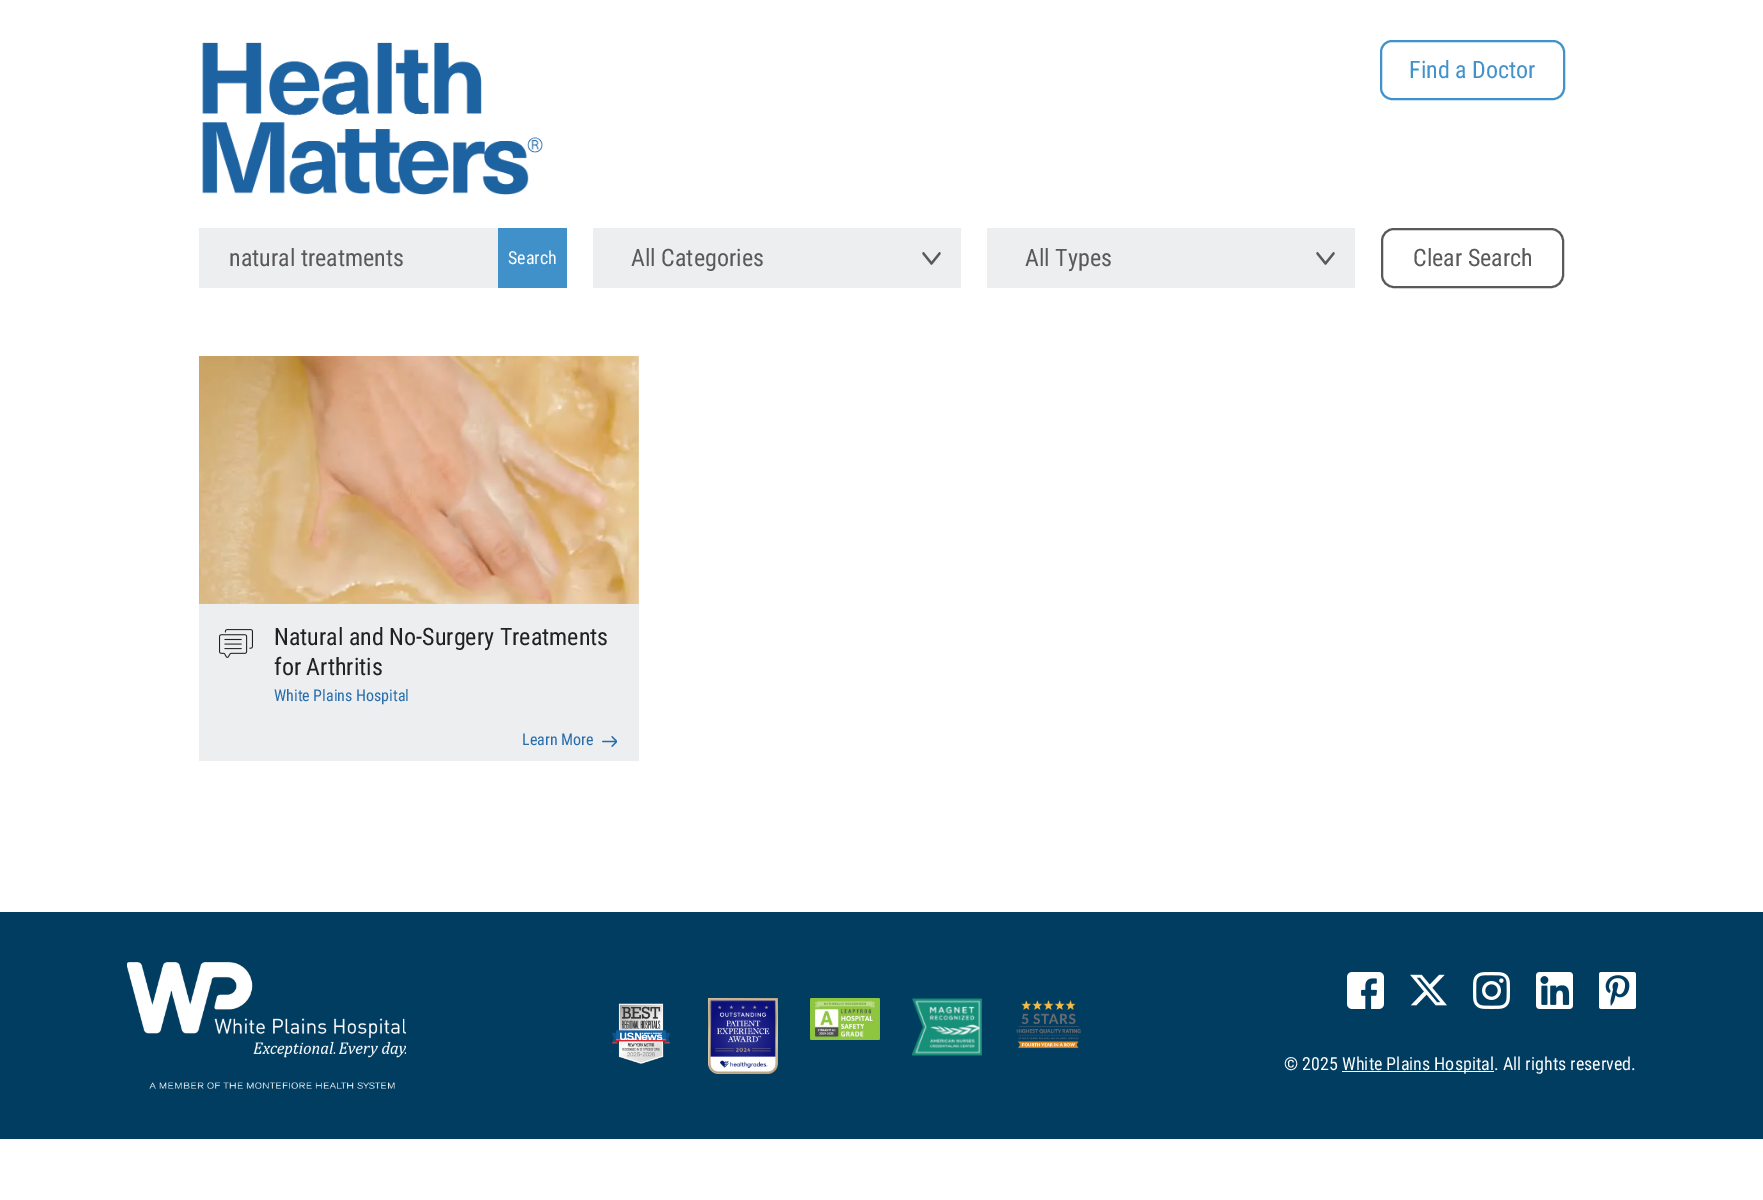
%!PS-Adobe-3.0
%%BoundingBox: 0 0 1763 1200
%%LanguageLevel: 3
%%Pages: 1
%%EndComments
%%BeginProlog
/setink { dup -16 bitshift 255 div exch dup -8 bitshift 255 and 255 div exch 255 and 255 div setrgbcolor } def
/usefont { [ exch dup neg 0 0 3 -1 roll 0 0 ] selectfont } def
/rrect { 5 dict begin { /r /h /w /y /x } { exch def } forall
  x r add y moveto x w add y 2 copy h add r arct x w add y h add x 1 index r arct
  x y h add x y r arct x y 2 copy exch w add exch r arct closepath end } def
/drawimage { 5 dict begin { /h /w /y /x /name } { exch def } forall
  gsave x y translate w h scale
  w h 8 [w 0 0 h 0 0] name (r) file false 3 colorimage grestore end } def
%%EndProlog
%%BeginSetup
<< /PageSize [1763 1200] >> setpagedevice
%%EndSetup
%%Page: 1 1
0 1200 translate 1 -1 scale
4 setmiterlimit
16#FFFFFF setink
0 0 1763 1200 rectfill
(img1.raw) 202 42 341 153 drawimage
16#4191CA setink
2 setlinewidth
1381 41 183 58 11 rrect stroke
/RobotoCondensed-Regular 24 usefont
1409 78 moveto (Find a Doctor) show
16#EDEEEF setink
199 228 299 60 rectfill
16#5A5858 setink
229 266 moveto (natural treatments) show
16#4091CA setink
498 228 69 60 rectfill
/RobotoCondensed-Regular 18 usefont
16#FFFFFF setink
508 264 moveto (Search) show
16#EDEEEF setink
593 228 368 60 rectfill
/RobotoCondensed-Regular 24 usefont
16#5A5858 setink
631 266 moveto (All Categories) show
(img2.raw) 922 252 19 13 drawimage
16#EDEEEF setink
987 228 368 60 rectfill
16#5A5858 setink
1025 266 moveto (All Types) show
(img2.raw) 1316 252 19 13 drawimage
1382 229 181 58 12 rrect stroke
1413 266 moveto (Clear Search) show
16#EDEEEF setink
199 356 440 405 rectfill
(img3.raw) 199 356 440 248 drawimage
(img4.raw) 219 629 34 29 drawimage
16#222121 setink
274 645 moveto (Natural and No-Surgery Treatments) show
274 675 moveto (for Arthritis) show
/RobotoCondensed-Regular 16 usefont
16#276DAC setink
274 701 moveto (White Plains Hospital) show
522 745 moveto (Learn More) show
(img5.raw) 602 736 15 11 drawimage
16#003D61 setink
0 912 1763 227 rectfill
(img6.raw) 127 962 279 127 drawimage
(img7.raw) 612 1003 58 61 drawimage
(img8.raw) 708 998 70 76 drawimage
(img9.raw) 810 998 70 42 drawimage
(img10.raw) 912 998 70 58 drawimage
(img11.raw) 1016 1000 65 49 drawimage
(img12.raw) 1347 972 37 37 drawimage
(img13.raw) 1410 974 37 32 drawimage
(img14.raw) 1473 972 37 37 drawimage
(img15.raw) 1536 972 37 37 drawimage
(img16.raw) 1599 972 37 37 drawimage
/RobotoCondensed-Regular 18 usefont
16#FFFFFF setink
1284 1070 moveto (© 2025) show
1342 1071 152 1 rectfill
1342 1070 moveto (White Plains Hospital. All rights reserved.) show
showpage
%%EOF
